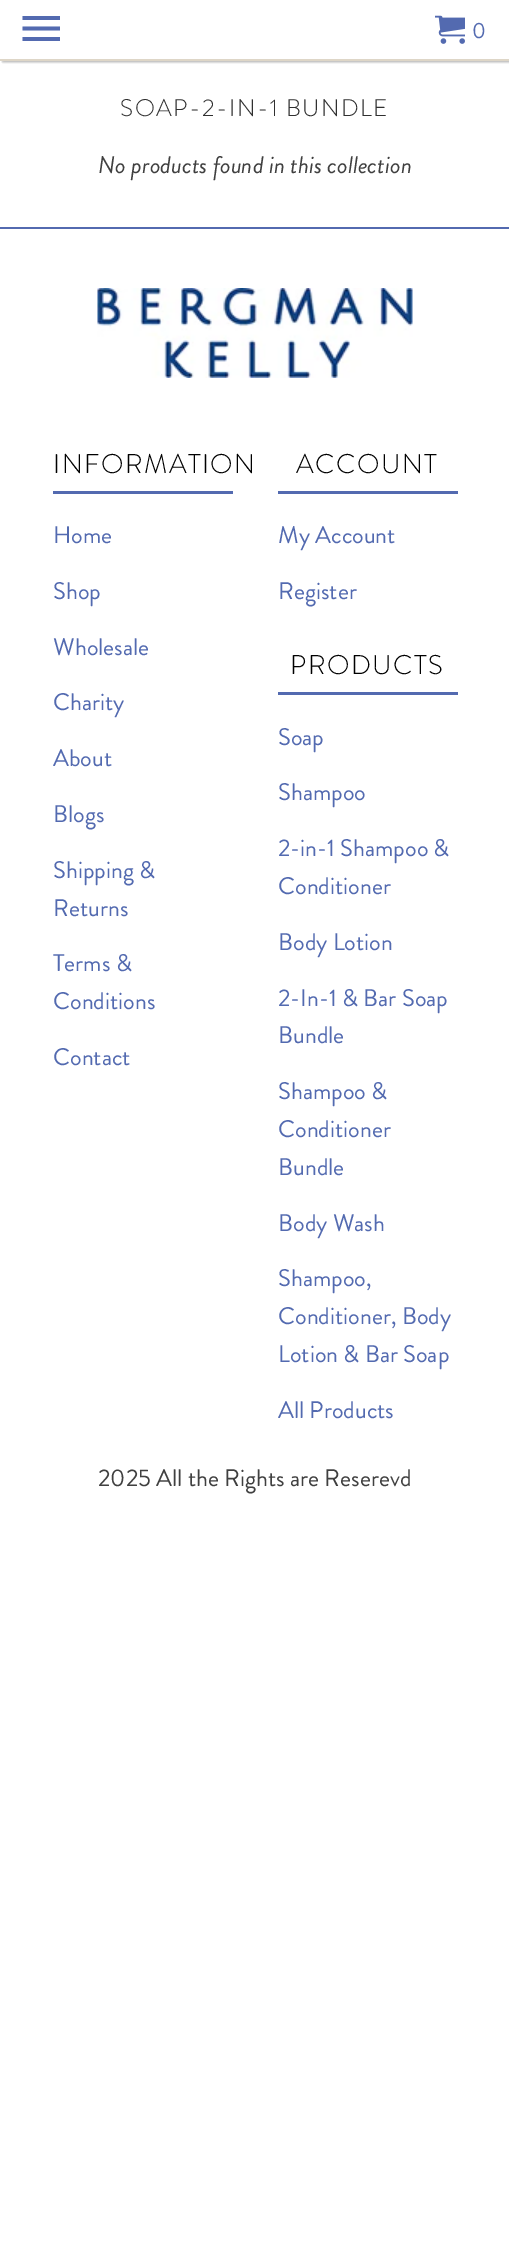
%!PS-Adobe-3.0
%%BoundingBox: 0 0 509 2245
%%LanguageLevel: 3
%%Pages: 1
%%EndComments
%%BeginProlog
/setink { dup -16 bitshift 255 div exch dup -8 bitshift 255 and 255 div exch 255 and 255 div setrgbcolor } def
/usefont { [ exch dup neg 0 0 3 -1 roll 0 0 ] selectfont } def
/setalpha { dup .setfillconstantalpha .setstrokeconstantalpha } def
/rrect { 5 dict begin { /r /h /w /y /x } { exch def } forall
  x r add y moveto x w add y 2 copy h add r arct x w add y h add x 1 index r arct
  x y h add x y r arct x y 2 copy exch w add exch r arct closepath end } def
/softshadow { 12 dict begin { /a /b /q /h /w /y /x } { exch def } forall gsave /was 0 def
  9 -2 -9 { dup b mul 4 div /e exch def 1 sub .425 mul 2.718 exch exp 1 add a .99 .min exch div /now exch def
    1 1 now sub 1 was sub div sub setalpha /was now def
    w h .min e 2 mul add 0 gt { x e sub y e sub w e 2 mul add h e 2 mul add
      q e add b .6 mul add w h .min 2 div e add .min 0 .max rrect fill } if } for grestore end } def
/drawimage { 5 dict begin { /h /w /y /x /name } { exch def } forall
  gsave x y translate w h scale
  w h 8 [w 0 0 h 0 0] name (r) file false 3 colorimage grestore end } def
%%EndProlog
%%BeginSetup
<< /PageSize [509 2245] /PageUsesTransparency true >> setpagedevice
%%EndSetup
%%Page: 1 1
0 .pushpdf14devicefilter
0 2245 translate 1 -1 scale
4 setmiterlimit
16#FFFFFF setink
0 0 509 2245 rectfill
gsave
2 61 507 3 rectclip
16#000000 setink
3 3 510 60 0 1.5 0.1 softshadow
grestore
gsave
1 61 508 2 rectclip
16#000000 setink
2 2 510 60 0 1 0.2 softshadow
grestore
16#DED6C7 setink
0 59 509 2 rectfill
16#536AB0 setink
22.5 41 moveto 60 41 lineto 60 37 lineto 22.5 37 lineto closepath 22.5 30.5 moveto 60 30.5 lineto 60 26.5 lineto 22.5 26.5 lineto closepath 22.5 16 moveto 22.5 20 lineto 60 20 lineto 60 16 lineto closepath fill
(img1.raw) 435 15 30 29 drawimage
/BrandonGrotesque-Regular 22 usefont
472 38 moveto 1.5 0 (0) ashow
/BrandonGrotesque-Light 24 usefont
16#303030 setink
120 116 moveto 1.5 0 (SOAP-2-IN-1 BUNDLE) ashow
/BrandonGrotesque-Italic 24 usefont
16#404040 setink
98 173 moveto (No products found in this collection) show
16#536AB0 setink
0 227 509 2 rectfill
(img2.raw) 97 288 316 90 drawimage
53 491 180 3 rectfill
/BrandonGrotesque-Light 27 usefont
16#000000 setink
53 473 moveto 1.5 0 (INFORMATION) ashow
/BrandonGrotesque-Regular 24 usefont
16#536AB0 setink
[
    [(Home) 53 543]
    [(Shop) 53 599]
    [(Wholesale) 53 655]
    [(Charity) 53 710]
    [(About) 53 766]
    [(Blogs) 53 822]
    [(Shipping &) 53 878]
    [(Returns) 53 916]
    [(Terms &) 53 971]
    [(Conditions) 53 1009]
    [(Contact) 53 1065]
] { aload pop moveto show } forall
278 491 180 3 rectfill
/BrandonGrotesque-Light 27 usefont
16#000000 setink
296 473 moveto 1.5 0 (ACCOUNT) ashow
/BrandonGrotesque-Regular 24 usefont
16#536AB0 setink
278 543 moveto (My Account) show
278 599 moveto (Register) show
278 692 180 3 rectfill
/BrandonGrotesque-Light 27 usefont
16#000000 setink
290 674 moveto 1.5 0 (PRODUCTS) ashow
/BrandonGrotesque-Regular 24 usefont
16#536AB0 setink
[
    [(Soap) 278 745]
    [(Shampoo) 278 800]
    [(2-in-1 Shampoo &) 278 856]
    [(Conditioner) 278 894]
    [(Body Lotion) 278 950]
    [(2-In-1 & Bar Soap) 278 1006]
    [(Bundle) 278 1043]
    [(Shampoo &) 278 1099]
    [(Conditioner) 278 1137]
    [(Bundle) 278 1175]
    [(Body Wash) 278 1231]
    [(Shampoo,) 278 1286]
    [(Conditioner, Body) 278 1324]
    [(Lotion & Bar Soap) 278 1362]
    [(All Products) 278 1418]
] { aload pop moveto show } forall
16#404040 setink
98 1486 moveto (2025 All the Rights are Reserevd) show
.poppdf14devicefilter showpage
%%EOF
